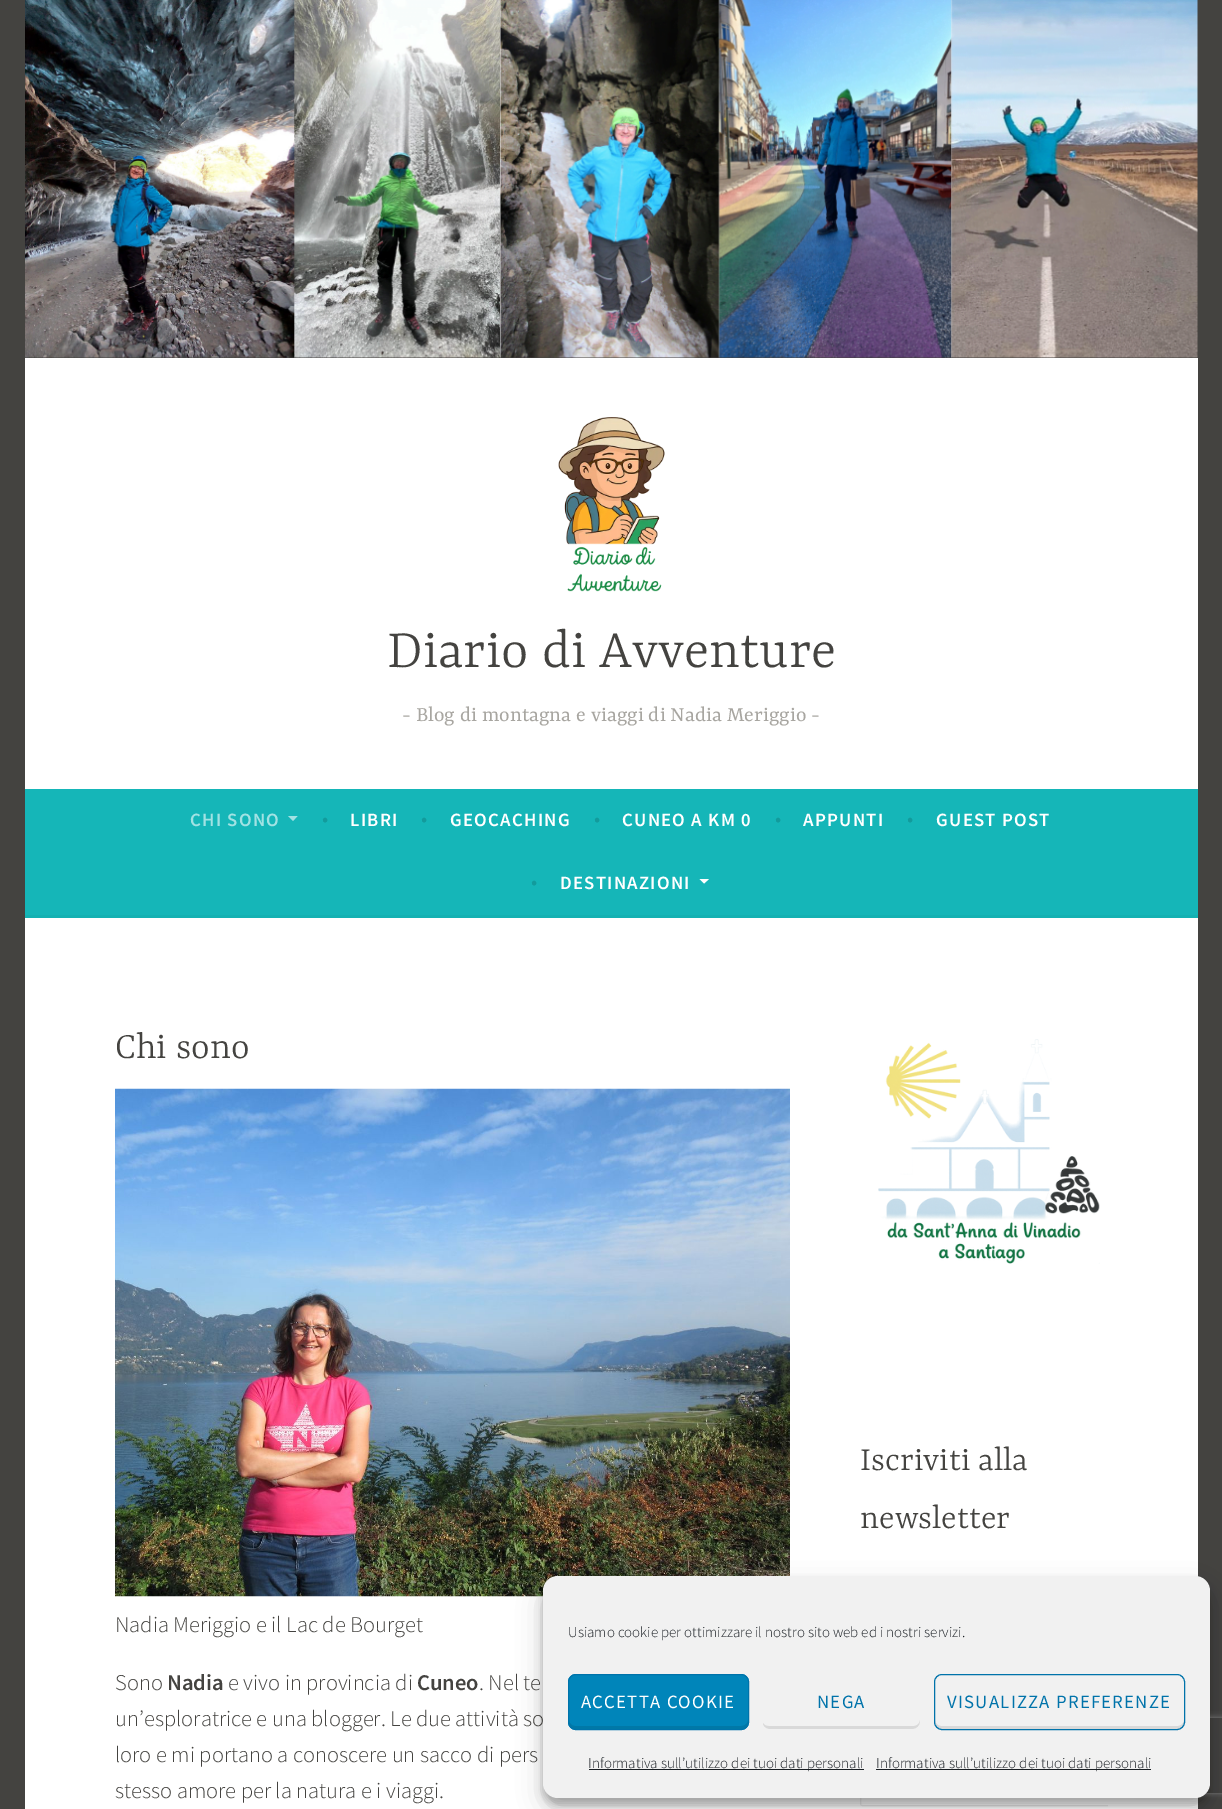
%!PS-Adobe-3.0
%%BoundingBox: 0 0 1222 1809
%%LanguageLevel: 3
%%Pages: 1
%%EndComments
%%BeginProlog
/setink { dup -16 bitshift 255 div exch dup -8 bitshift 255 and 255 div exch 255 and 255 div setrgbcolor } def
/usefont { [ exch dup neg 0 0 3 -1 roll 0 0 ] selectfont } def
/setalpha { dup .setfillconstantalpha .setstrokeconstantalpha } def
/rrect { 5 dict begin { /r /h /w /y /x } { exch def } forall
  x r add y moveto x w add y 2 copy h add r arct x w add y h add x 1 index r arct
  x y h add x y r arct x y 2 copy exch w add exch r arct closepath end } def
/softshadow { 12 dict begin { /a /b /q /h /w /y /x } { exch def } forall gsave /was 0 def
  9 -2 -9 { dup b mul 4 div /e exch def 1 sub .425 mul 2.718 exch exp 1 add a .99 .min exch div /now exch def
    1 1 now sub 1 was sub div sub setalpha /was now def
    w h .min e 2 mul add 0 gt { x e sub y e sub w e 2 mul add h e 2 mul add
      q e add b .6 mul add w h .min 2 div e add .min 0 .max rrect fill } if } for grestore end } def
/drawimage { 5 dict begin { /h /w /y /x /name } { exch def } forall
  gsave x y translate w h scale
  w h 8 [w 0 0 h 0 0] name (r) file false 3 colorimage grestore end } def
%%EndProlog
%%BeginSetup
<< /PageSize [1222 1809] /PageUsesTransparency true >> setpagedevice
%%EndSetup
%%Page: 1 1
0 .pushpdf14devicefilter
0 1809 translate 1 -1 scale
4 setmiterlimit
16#444340 setink
0 0 1222 1809 rectfill
(img1.raw) 25 0 1173 358 drawimage
16#FFFFFF setink
25 358 1173 431 rectfill
(img2.raw) 558 417 107 175 drawimage
/Yrsa-Light 58.75 usefont
16#444340 setink
387 667 moveto (Diario di Avventure) show
/Yrsa-Regular 22.5 usefont
16#A8A6A1 setink
402 721 moveto (- Blog di montagna e viaggi di Nadia Meriggio -) show
16#15B6B8 setink
25 789 1173 126 rectfill
16#14B1B2 setink
25 915 1173 3 rectfill
/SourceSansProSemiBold-SemiBold 18.75 usefont
16#A1E2E3 setink
190 826 moveto 1.25 0 (CHI SONO) ashow
288 816 moveto 297.5 816 lineto 293 821 lineto closepath fill
/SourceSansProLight-Light 22.5 usefont
16#129B9C setink
322 826 moveto (•) show
/SourceSansProSemiBold-SemiBold 18.75 usefont
16#FFFFFF setink
350 826 moveto 1.25 0 (LIBRI) ashow
/SourceSansProLight-Light 22.5 usefont
16#129B9C setink
421 826 moveto (•) show
/SourceSansProSemiBold-SemiBold 18.75 usefont
16#FFFFFF setink
450 826 moveto 1.25 0 (GEOCACHING) ashow
/SourceSansProLight-Light 22.5 usefont
16#129B9C setink
594 826 moveto (•) show
/SourceSansProSemiBold-SemiBold 18.75 usefont
16#FFFFFF setink
622 826 moveto 1.25 0 (CUNEO A KM 0) ashow
/SourceSansProLight-Light 22.5 usefont
16#129B9C setink
775 826 moveto (•) show
/SourceSansProSemiBold-SemiBold 18.75 usefont
16#FFFFFF setink
803 826 moveto 1.25 0 (APPUNTI) ashow
/SourceSansProLight-Light 22.5 usefont
16#129B9C setink
907 826 moveto (•) show
/SourceSansProSemiBold-SemiBold 18.75 usefont
16#FFFFFF setink
936 826 moveto 1.25 0 (GUEST POST) ashow
/SourceSansProLight-Light 22.5 usefont
16#129B9C setink
531 889 moveto (•) show
/SourceSansProSemiBold-SemiBold 18.75 usefont
16#FFFFFF setink
560 889 moveto 1.25 0 (DESTINAZIONI) ashow
699.5 879 moveto 709 879 lineto 704 883.5 lineto closepath fill
25 918 1173 891 rectfill
/Yrsa-Light 40 usefont
16#444340 setink
115 1058 moveto (Chi sono) show
(img3.raw) 115 1088 675 509 drawimage
/SourceSansProLight-Light 22.5 usefont
115 1632 moveto (Nadia Meriggio e il Lac de Bourget) show
115 1690 moveto (Sono) show
/SourceSansProSemiBold-SemiBold 22.5 usefont
167 1690 moveto (Nadia) show
/SourceSansProLight-Light 22.5 usefont
228 1690 moveto (e vivo in provincia di) show
/SourceSansProSemiBold-SemiBold 22.5 usefont
417 1690 moveto (Cuneo) show
/SourceSansProLight-Light 22.5 usefont
[
    [(. Nel te) 479 1690]
    [(un’esploratrice e una blogger. Le due attività so) 115 1726]
    [(loro e mi portano a conoscere un sacco di pers) 115 1762]
    [(stesso amore per la natura e i viaggi.) 115 1798]
] { aload pop moveto show } forall
(img4.raw) 878 1039 222 225 drawimage
/Yrsa-Light 36.25 usefont
860 1470 moveto (Iscriviti alla) show
860 1528 moveto (newsletter) show
gsave
860 1025 248 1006 rectclip
16#EEEEEE setink
860.5 1750.5 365 55 2 rrect stroke
grestore
16#000000 setink
543 1584 667 221 15 4 0.23 softshadow
543 1589 667 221 15 12.5 0.19 softshadow
gsave
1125 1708 moveto 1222 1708 lineto 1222 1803 lineto 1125 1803 lineto closepath 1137.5 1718 moveto 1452.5 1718 lineto 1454 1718 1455 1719 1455 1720.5 curveto 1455 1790.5 lineto 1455 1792 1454 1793 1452.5 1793 curveto 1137.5 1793 lineto 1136 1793 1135 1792 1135 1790.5 curveto 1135 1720.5 lineto 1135 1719 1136 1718 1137.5 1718 curveto closepath eoclip newpath
16#808080 setink
1135 1718 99 75 2.5 3 1 softshadow
grestore
16#F1F1F1 setink
543 1576 667 222 15 rrect fill
/SourceSansProLight-Light 15 usefont
16#191E23 setink
568 1637 moveto (Usiamo cookie per ottimizzare il nostro sito web ed i nostri servizi.) show
16#0085BA setink
568 1674 181 56 8 rrect fill
16#0078A7 setink
569 1720 moveto 569 1723 lineto 569 1726 572 1729 575 1729 curveto 742 1729 lineto 745 1729 748 1726 748 1723 curveto 748 1720 lineto 748 1723 745 1726 741 1726 curveto 575 1726 lineto 572 1726 569 1723 569 1720 curveto closepath fill
16#0073AA setink
568.5 1674.5 180 55 7.5 rrect stroke
/SourceSansPro-Regular 18.75 usefont
16#FFFFFF setink
581 1708 moveto 1.25 0 (ACCETTA COOKIE) ashow
16#D9D9D9 setink
763 1723 moveto 763 1726 766 1729 769 1729 curveto 914 1729 lineto 917 1729 920 1726 920 1723 curveto 920 1720 lineto 920 1723 917 1726 914 1726 curveto 769 1726 lineto 766 1726 764 1725 763 1723 curveto closepath fill
16#F1F1F1 setink
761.5 1674.5 159 55 7.5 rrect stroke
16#0073AA setink
817 1708 moveto 1.25 0 (NEGA) ashow
16#D9D9D9 setink
935 1720 moveto 935 1723 lineto 935 1726 938 1729 941 1729 curveto 1178 1729 lineto 1181 1729 1184 1726 1184 1723 curveto 1184 1720 lineto 1184 1723 1181 1726 1178 1726 curveto 941 1726 lineto 938 1726 935 1723 935 1720 curveto closepath fill
16#0073AA setink
934.5 1674.5 250 55 7.5 rrect stroke
947 1708 moveto 1.25 0 (VISUALIZZA PREFERENZE) ashow
16#191E23 setink
589 1769 275 1 rectfill
/SourceSansProLight-Light 15 usefont
588 1768 moveto (Informativa sull’utilizzo dei tuoi dati personali) show
876 1769 275 1 rectfill
876 1768 moveto (Informativa sull’utilizzo dei tuoi dati personali) show
.poppdf14devicefilter showpage
%%EOF
